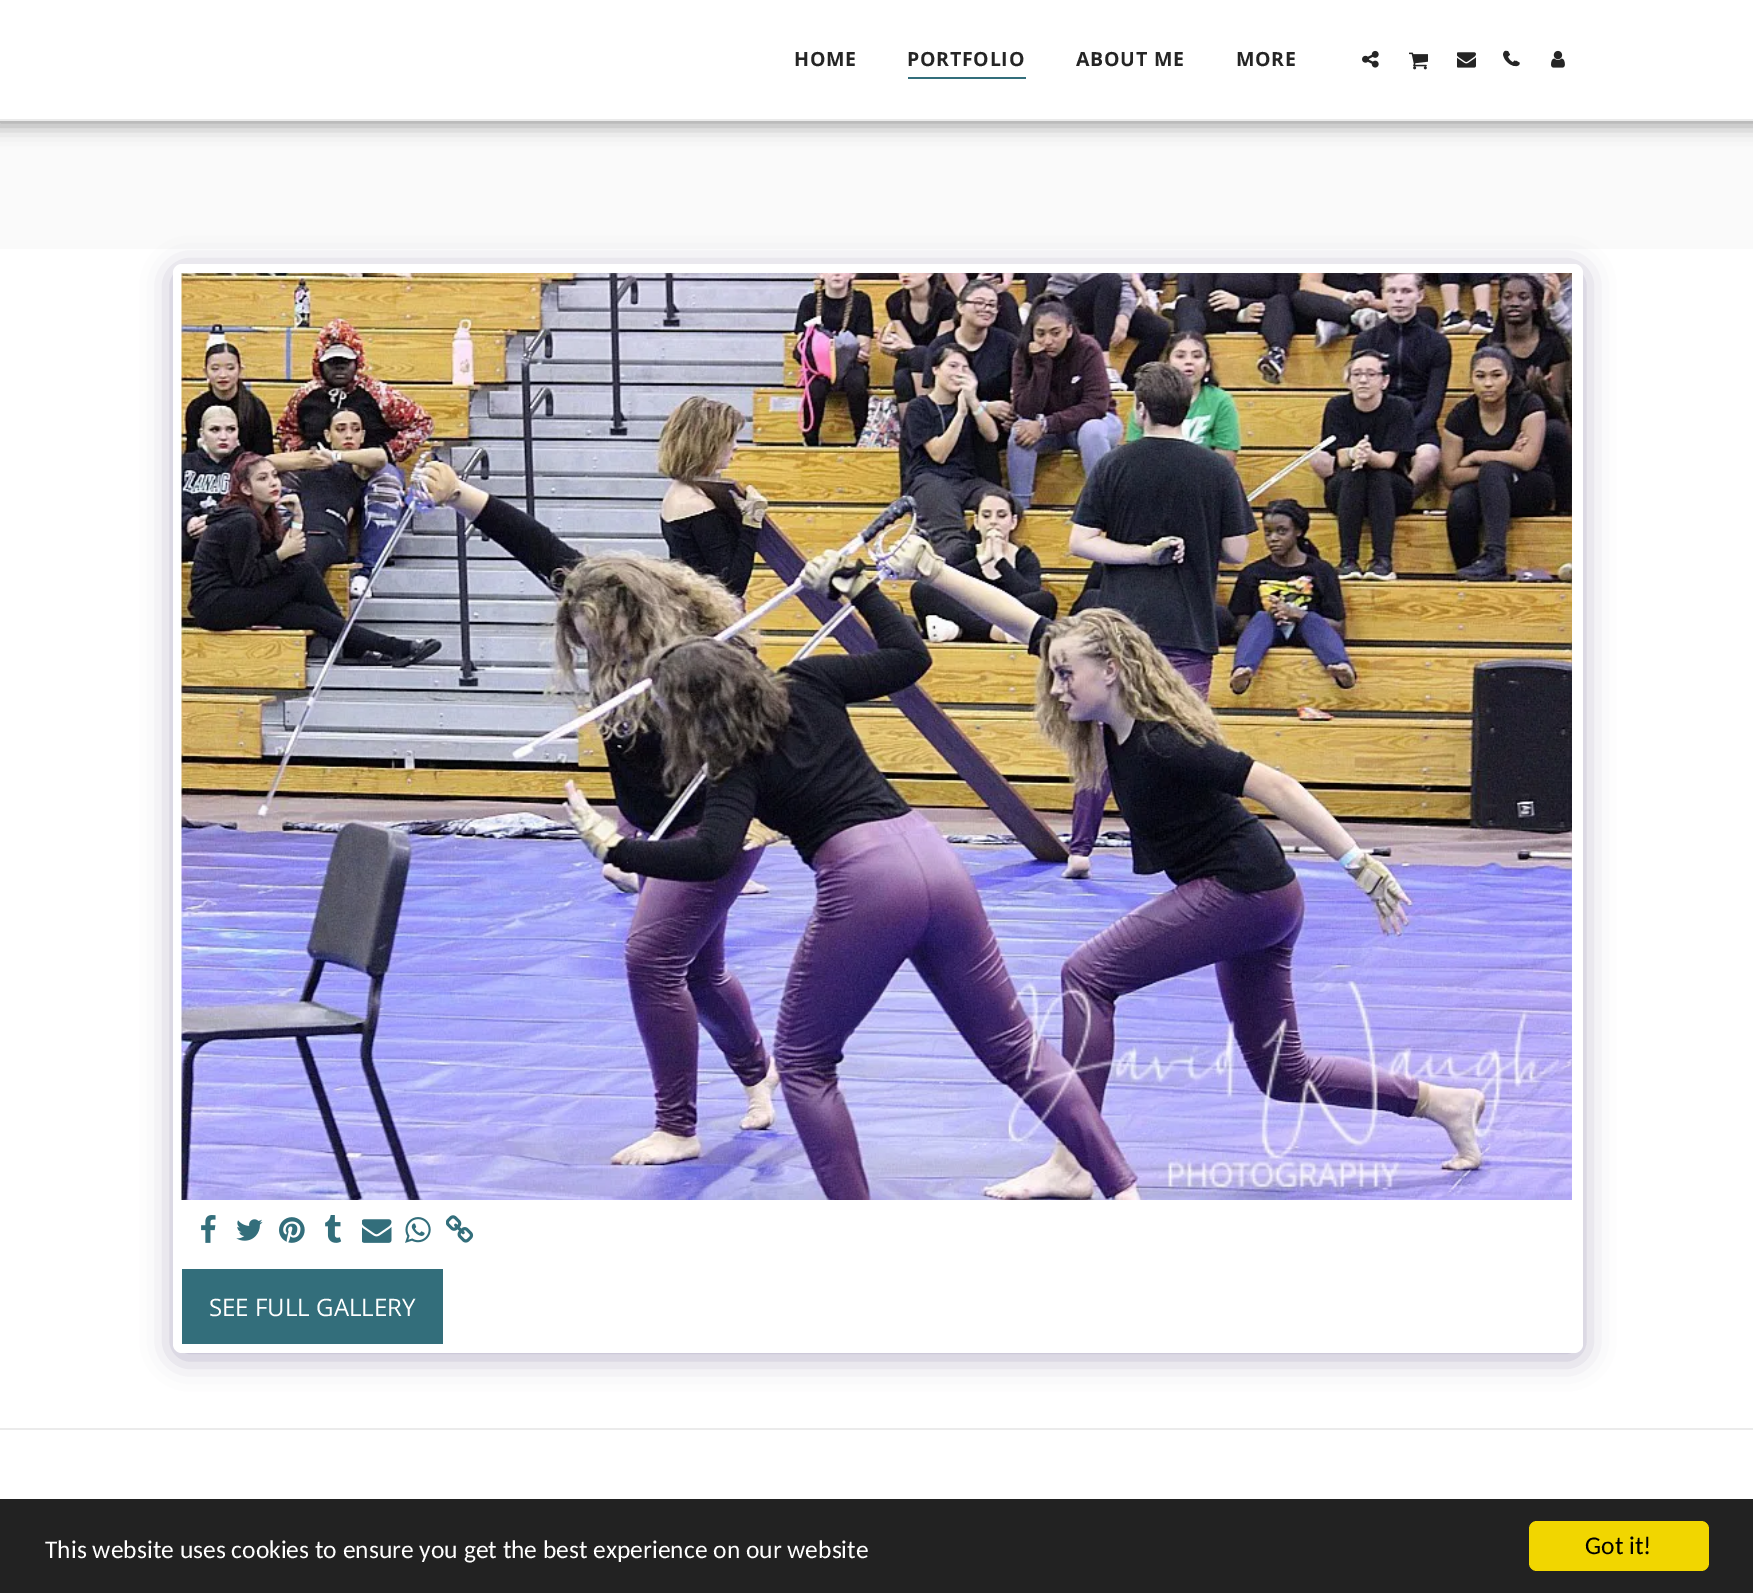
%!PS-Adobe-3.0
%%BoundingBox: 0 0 1753 1593
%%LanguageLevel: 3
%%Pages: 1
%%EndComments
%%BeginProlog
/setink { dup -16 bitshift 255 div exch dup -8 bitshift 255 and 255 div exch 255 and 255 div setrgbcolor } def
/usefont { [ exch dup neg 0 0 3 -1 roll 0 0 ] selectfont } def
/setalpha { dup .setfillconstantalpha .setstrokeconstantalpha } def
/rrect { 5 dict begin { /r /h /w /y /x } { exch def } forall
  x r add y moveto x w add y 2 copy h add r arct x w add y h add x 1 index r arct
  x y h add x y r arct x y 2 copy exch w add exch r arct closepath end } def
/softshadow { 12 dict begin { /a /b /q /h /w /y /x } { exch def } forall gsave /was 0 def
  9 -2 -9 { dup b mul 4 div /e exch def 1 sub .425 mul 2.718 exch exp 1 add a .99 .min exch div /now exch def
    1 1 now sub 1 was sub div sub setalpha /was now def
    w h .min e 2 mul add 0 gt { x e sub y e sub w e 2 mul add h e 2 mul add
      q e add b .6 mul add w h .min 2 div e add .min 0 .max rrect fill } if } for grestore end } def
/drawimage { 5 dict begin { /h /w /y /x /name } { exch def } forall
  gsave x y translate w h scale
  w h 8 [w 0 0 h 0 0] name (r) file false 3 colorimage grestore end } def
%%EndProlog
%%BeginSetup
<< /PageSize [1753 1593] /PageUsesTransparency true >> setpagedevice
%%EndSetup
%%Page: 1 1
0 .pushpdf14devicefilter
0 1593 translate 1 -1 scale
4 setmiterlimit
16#FFFFFF setink
0 0 1753 1593 rectfill
16#FAFAFA setink
0 121 1753 128 rectfill
16#000000 setink
-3 0 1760 126 0 9 0.35 softshadow
16#FFFFFF setink
0 0 1753 119 rectfill
16#EBEBEB setink
0 119 1753 2 rectfill
/OpenSans-Bold 19.5 usefont
16#252525 setink
794 66 moveto 0.75 0 (HOME) ashow
907 66 moveto 0.75 0 (PORTFOLIO) ashow
16#336E7B setink
908 77 118 2 rectfill
16#252525 setink
1076 66 moveto 0.75 0 (ABOUT ME) ashow
1236 66 moveto 0.75 0 (MORE) ashow
(img1.raw) 1362 50 17 18 drawimage
(img2.raw) 1409 52 19 18 drawimage
(img3.raw) 1457 52 19 16 drawimage
(img4.raw) 1506 50 14 17 drawimage
(img5.raw) 1503 50 15 16 drawimage
(img6.raw) 1551 50 14 18 drawimage
16#4D3F7A setink
173 269 1410 1089 9 15 0.4 softshadow
16#FFFFFF setink
173 264 1410 1089 9 rrect fill
(img7.raw) 181 273 1391 927 drawimage
(img8.raw) 201 1215 15 28 drawimage
(img9.raw) 236 1219 27 22 drawimage
(img10.raw) 279 1217 26 26 drawimage
(img11.raw) 325 1215 17 28 drawimage
(img12.raw) 362 1219 30 24 drawimage
(img13.raw) 405 1217 26 26 drawimage
(img14.raw) 446 1215 28 28 drawimage
16#336E7B setink
182 1269 261 75 rectfill
/OpenSans-Regular 24 usefont
16#FFFFFF setink
209 1316 moveto (SEE FULL GALLERY) show
16#EBEBEB setink
0 1428 1753 2 rectfill
16#222222 setink
0 1499 1753 94 rectfill
/Carlito-Regular 25.5 usefont
16#FFFFFF setink
45 1558 moveto (This website uses cookies to ensure you get the best experience on our website) show
16#F1D600 setink
1529 1521 180 50 8 rrect fill
16#000000 setink
1585 1554 moveto (Got it!) show
.poppdf14devicefilter showpage
%%EOF
